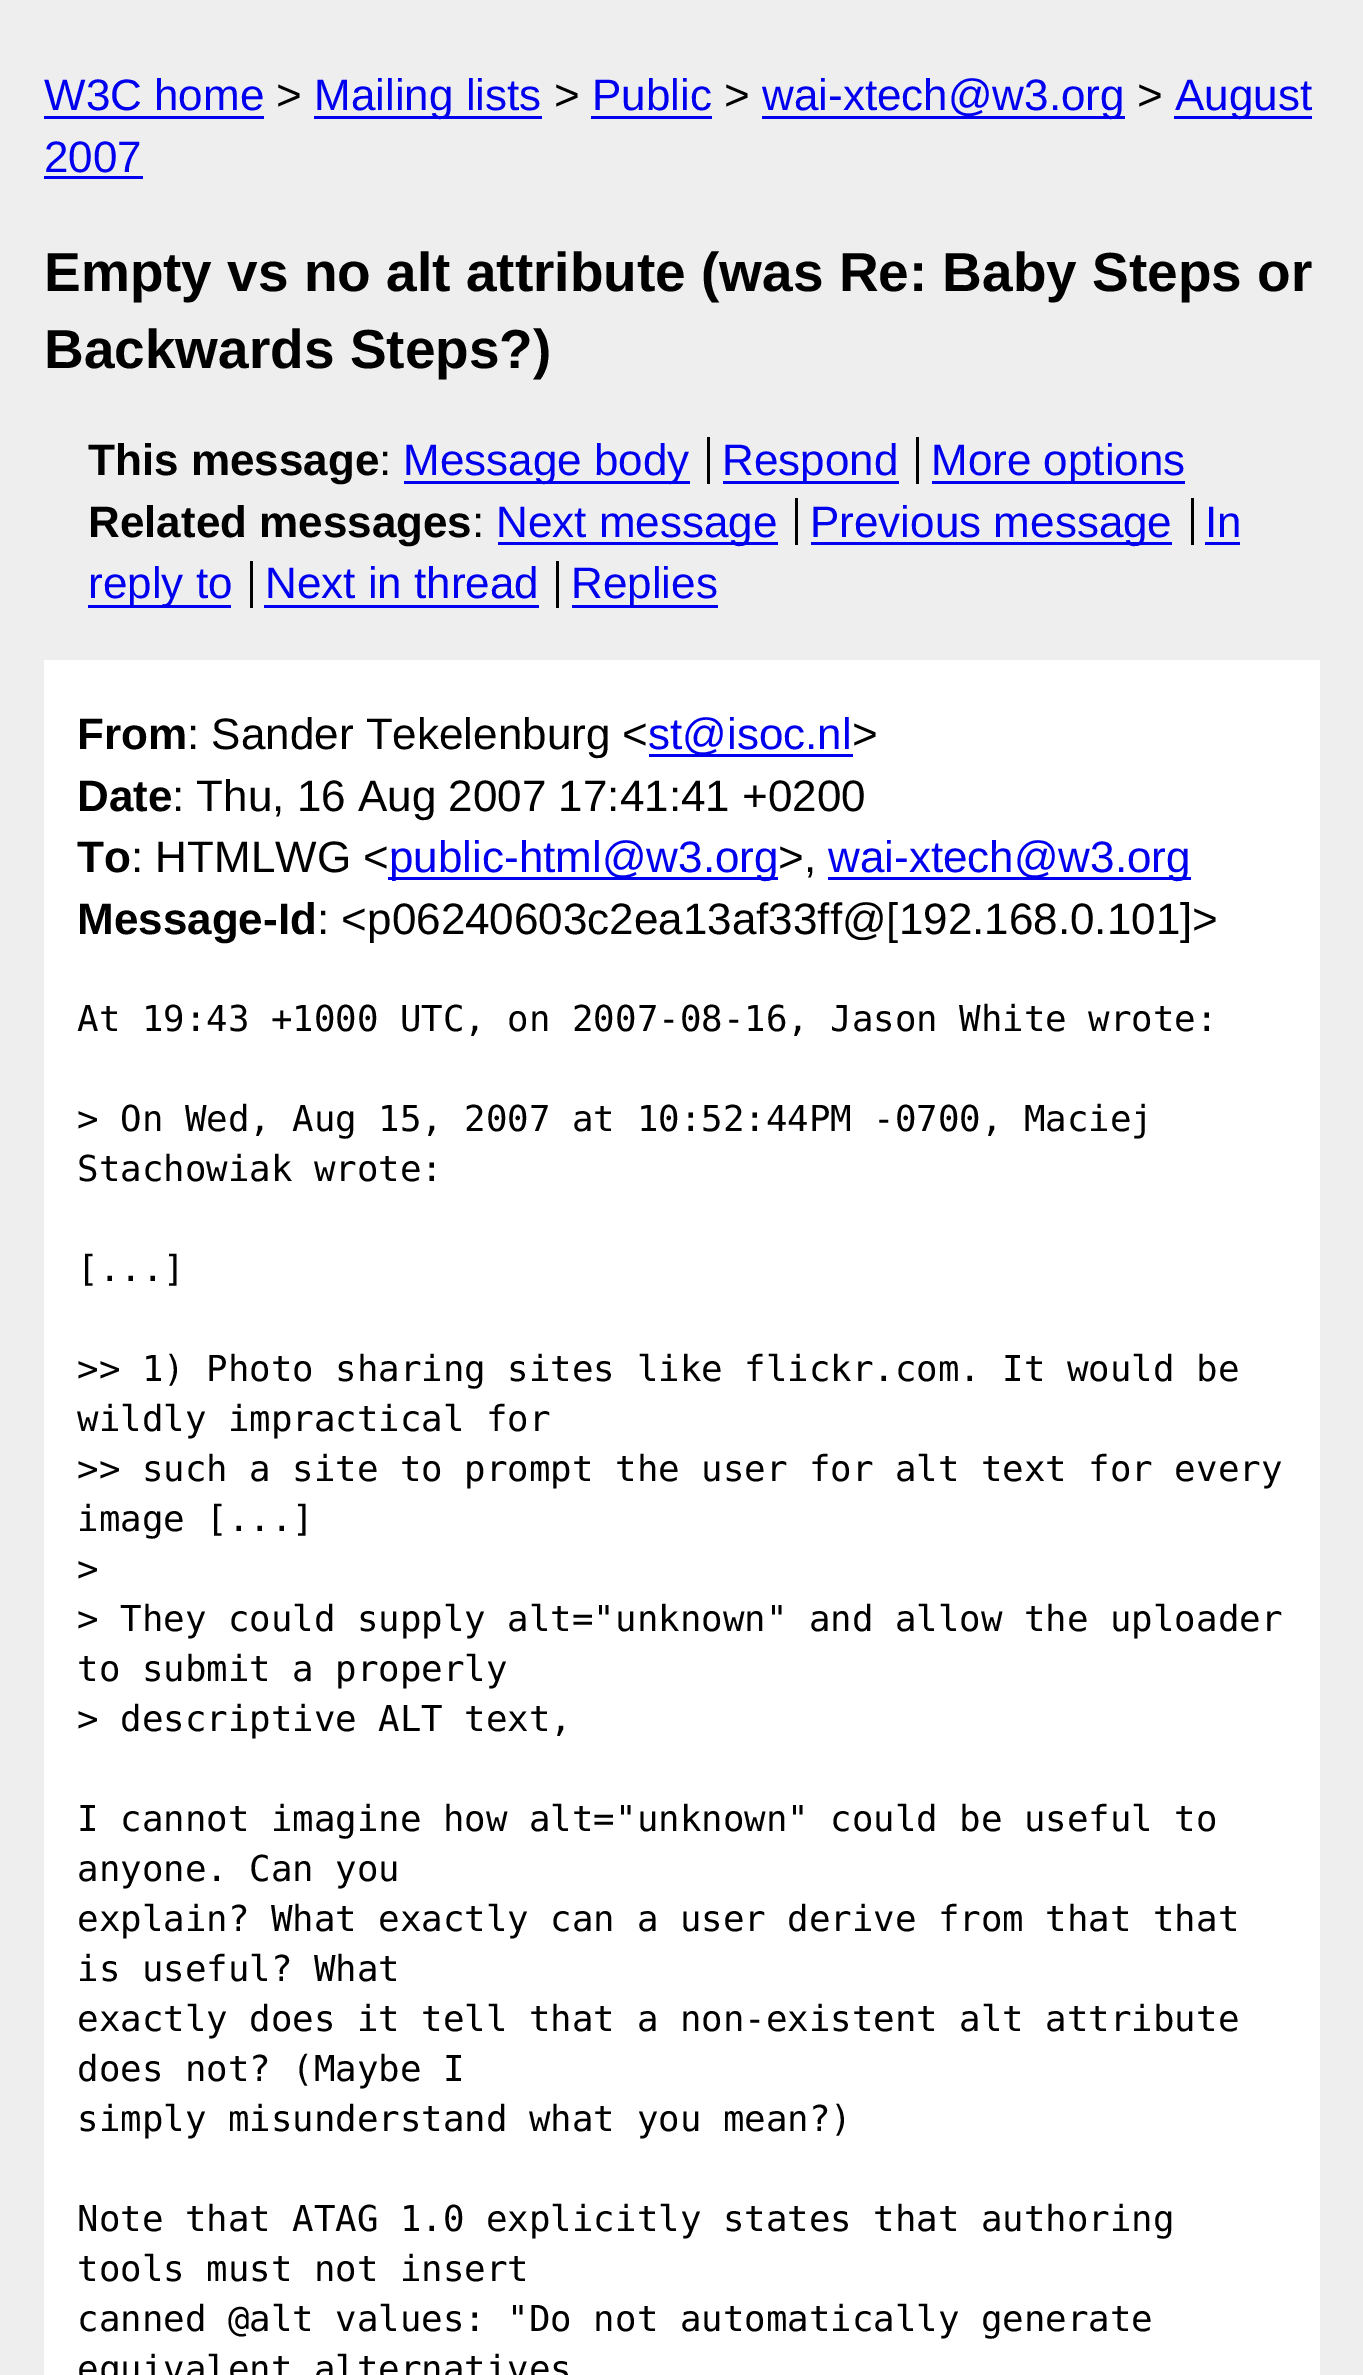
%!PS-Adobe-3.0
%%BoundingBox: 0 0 1363 2375
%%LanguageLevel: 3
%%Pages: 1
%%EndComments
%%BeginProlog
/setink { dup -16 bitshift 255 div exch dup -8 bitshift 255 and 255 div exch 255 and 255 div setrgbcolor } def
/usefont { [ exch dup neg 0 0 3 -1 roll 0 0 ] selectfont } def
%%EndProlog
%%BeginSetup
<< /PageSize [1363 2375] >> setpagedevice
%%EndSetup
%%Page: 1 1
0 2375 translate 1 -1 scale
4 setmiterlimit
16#EEEEEE setink
0 0 1363 2375 rectfill
/LiberationSans-Regular 44 usefont
16#0000EE setink
44 110 moveto (W3C home) show
44 116 220 3 rectfill
16#000000 setink
276 110 moveto (>) show
16#0000EE setink
314 116 228 3 rectfill
314 110 moveto (Mailing lists) show
16#000000 setink
554 110 moveto (>) show
16#0000EE setink
592 110 moveto (Public) show
591 116 121 3 rectfill
16#000000 setink
724 110 moveto (>) show
16#0000EE setink
762 116 363 3 rectfill
762 110 moveto (wai-xtech@w3.org) show
16#000000 setink
1137 110 moveto (>) show
16#0000EE setink
1174 116 138 3 rectfill
1175 110 moveto (August) show
44 172 moveto (2007) show
44 176 99 3 rectfill
/LiberationSans-Bold 55 usefont
16#000000 setink
44 291 moveto (Empty vs no alt attribute \(was Re: Baby Steps or) show
44 368 moveto (Backwards Steps?\)) show
/LiberationSans-Bold 44 usefont
88 475 moveto (This message) show
/LiberationSans-Regular 44 usefont
379 475 moveto (:) show
16#0000EE setink
404 481 286 3 rectfill
403 475 moveto (Message body) show
723 481 176 3 rectfill
722 475 moveto (Respond) show
16#000000 setink
707 437 3 47 rectfill
16#0000EE setink
932 481 253 3 rectfill
931 475 moveto (More options) show
16#000000 setink
916 437 3 47 rectfill
/LiberationSans-Bold 44 usefont
88 537 moveto (Related messages) show
/LiberationSans-Regular 44 usefont
472 537 moveto (:) show
16#0000EE setink
498 542 280 3 rectfill
496 537 moveto (Next message) show
811 542 361 3 rectfill
810 537 moveto (Previous message) show
16#000000 setink
795 498 3 47 rectfill
16#0000EE setink
1205 537 moveto (In) show
[
    [1191 498 3 47 16#000000]
    [1205 542 35 3 16#0000EE]
    [88 605 143 3 16#0000EE]
] { aload pop setink rectfill } forall
88 598 moveto (reply to) show
265 598 moveto (Next in thread) show
[
    [250 561 3 47 16#000000]
    [264 605 275 3 16#0000EE]
    [572 605 146 3 16#0000EE]
] { aload pop setink rectfill } forall
571 598 moveto (Replies) show
16#000000 setink
556 561 3 47 rectfill
16#FFFFFF setink
44 660 1276 1715 rectfill
/LiberationSans-Bold 44 usefont
16#000000 setink
77 749 moveto (From) show
/LiberationSans-Regular 44 usefont
187 749 moveto (: Sander Tekelenburg <) show
16#0000EE setink
649 754 204 3 rectfill
648 749 moveto (st@isoc.nl) show
16#000000 setink
852 749 moveto (>) show
/LiberationSans-Bold 44 usefont
77 811 moveto (Date) show
/LiberationSans-Regular 44 usefont
172 811 moveto (: Thu, 16 Aug 2007 17:41:41 +0200) show
/LiberationSans-Bold 44 usefont
77 872 moveto (To) show
/LiberationSans-Regular 44 usefont
131 872 moveto (: HTMLWG <) show
16#0000EE setink
388 877 390 3 rectfill
389 872 moveto (public-html@w3.org) show
16#000000 setink
778 872 moveto (>,) show
16#0000EE setink
828 877 363 3 rectfill
828 872 moveto (wai-xtech@w3.org) show
/LiberationSans-Bold 44 usefont
16#000000 setink
77 934 moveto (Message-Id) show
/LiberationSans-Regular 44 usefont
317 934 moveto (: <p06240603c2ea13af33ff@[192.168.0.101]>) show
/DejaVuSansMono-Regular 35.75 usefont
[
    [(At 19:43 +1000 UTC, on 2007-08-16, Jason White wrote:) 77 1031]
    [(> On Wed, Aug 15, 2007 at 10:52:44PM -0700, Maciej) 77 1131]
    [(Stachowiak wrote:) 77 1181]
    [([...]) 77 1281]
    [(>> 1\) Photo sharing sites like flickr.com. It would be) 77 1381]
    [(wildly impractical for) 77 1431]
    [(>> such a site to prompt the user for alt text for every) 77 1481]
    [(image [...]) 77 1531]
    [(>) 77 1581]
    [(> They could supply alt="unknown" and allow the uploader) 77 1631]
    [(to submit a properly) 77 1681]
    [(> descriptive ALT text,) 77 1731]
    [(I cannot imagine how alt="unknown" could be useful to) 77 1831]
    [(anyone. Can you) 77 1881]
    [(explain? What exactly can a user derive from that that) 77 1931]
    [(is useful? What) 77 1981]
    [(exactly does it tell that a non-existent alt attribute) 77 2031]
    [(does not? \(Maybe I) 77 2081]
    [(simply misunderstand what you mean?\)) 77 2131]
    [(Note that ATAG 1.0 explicitly states that authoring) 77 2231]
    [(tools must not insert) 77 2281]
    [(canned @alt values: "Do not automatically generate) 77 2331]
    [(equivalent alternatives) 77 2381]
] { aload pop moveto show } forall
showpage
%%EOF
